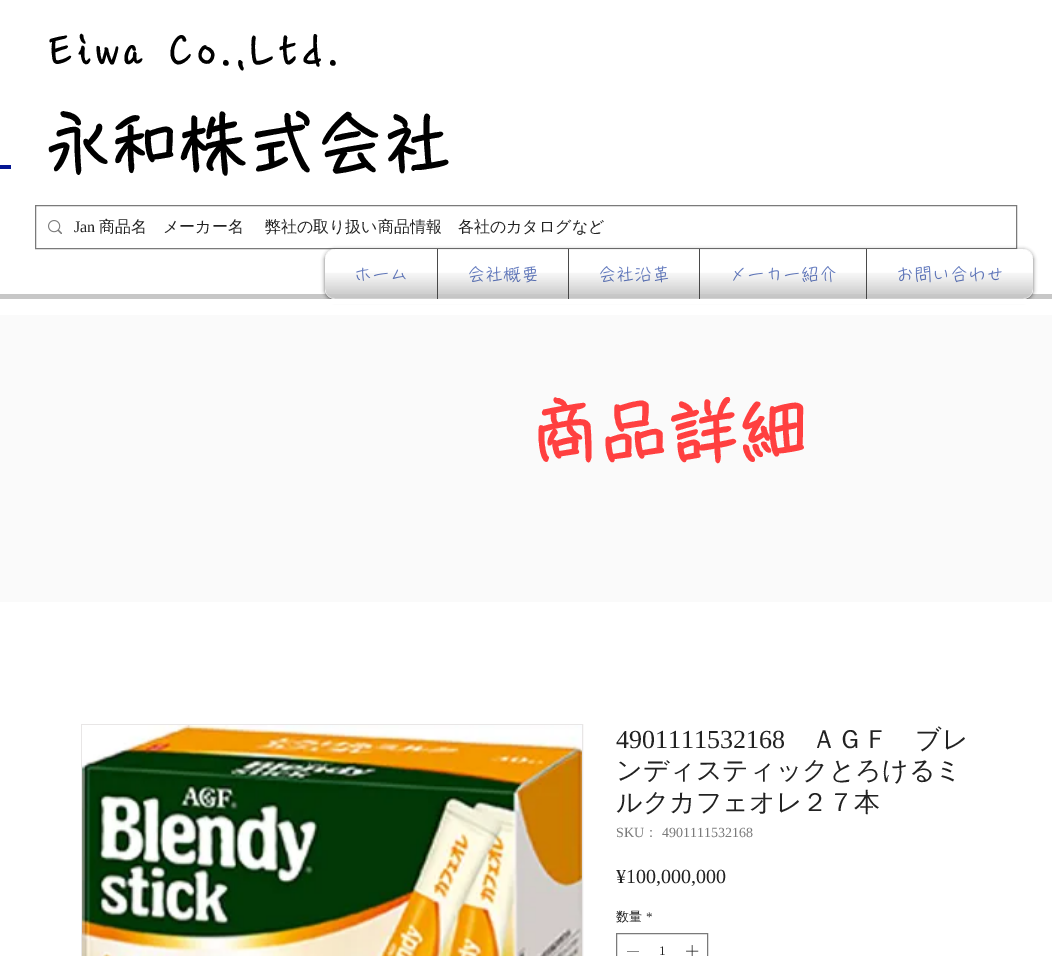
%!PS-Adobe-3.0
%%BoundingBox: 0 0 1052 956
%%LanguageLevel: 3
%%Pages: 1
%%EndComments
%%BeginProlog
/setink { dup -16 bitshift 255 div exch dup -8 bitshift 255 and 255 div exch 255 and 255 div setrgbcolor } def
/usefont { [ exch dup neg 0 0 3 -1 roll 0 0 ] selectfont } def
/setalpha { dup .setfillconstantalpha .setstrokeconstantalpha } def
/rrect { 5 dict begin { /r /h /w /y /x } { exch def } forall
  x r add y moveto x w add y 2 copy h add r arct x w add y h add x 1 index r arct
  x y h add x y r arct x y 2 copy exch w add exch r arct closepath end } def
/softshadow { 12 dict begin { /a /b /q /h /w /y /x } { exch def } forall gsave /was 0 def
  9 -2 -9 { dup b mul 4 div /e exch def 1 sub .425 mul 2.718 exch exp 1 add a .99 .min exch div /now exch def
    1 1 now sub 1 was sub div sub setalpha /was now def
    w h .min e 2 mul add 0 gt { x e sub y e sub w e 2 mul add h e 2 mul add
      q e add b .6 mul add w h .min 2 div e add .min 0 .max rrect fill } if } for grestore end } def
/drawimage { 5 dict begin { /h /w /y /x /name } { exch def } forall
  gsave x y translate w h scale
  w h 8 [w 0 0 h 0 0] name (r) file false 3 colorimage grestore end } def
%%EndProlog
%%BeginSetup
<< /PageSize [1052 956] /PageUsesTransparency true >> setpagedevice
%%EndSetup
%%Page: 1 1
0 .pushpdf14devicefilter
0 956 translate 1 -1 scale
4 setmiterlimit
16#FFFFFF setink
0 0 1052 956 rectfill
/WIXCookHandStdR-Bold 40 usefont
16#000000 setink
49 67 moveto 6 0 (Eiwa Co.,Ltd.) ashow
16#051693 setink
0 165 11 4 rectfill
/WIXCookHandStdR-Bold 68 usefont
16#000000 setink
42 170 moveto (永和株式会社) show
16#7A7A7A setink
35.5 205.5 981 43 rectstroke
(img1.raw) 48 220 14 14 drawimage
/LiberationSerif-Regular 16 usefont
16#222222 setink
74 232 moveto (Jan) show
/WenQuanYiZenHei-Medium 16 usefont
99 232 moveto (商品名　メーカー名 　弊社の取り扱い商品情報　各社のカタログなど) show
16#C7C7C7 setink
0 294 1052 5 rectfill
gsave
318 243 moveto 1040 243 lineto 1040 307 lineto 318 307 lineto closepath 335 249 moveto 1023 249 lineto 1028.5 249 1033 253.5 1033 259 curveto 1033 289 lineto 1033 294.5 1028.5 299 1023 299 curveto 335 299 lineto 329.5 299 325 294.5 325 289 curveto 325 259 lineto 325 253.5 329.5 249 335 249 curveto closepath eoclip newpath
16#000000 setink
325 250 708 50 10 2 0.6 softshadow
grestore
0.65 setalpha
16#FFFFFF setink
325 249 708 50 10 rrect fill
1 setalpha
(img2.raw) 325 272 708 26 drawimage
0.65 setalpha
335 249 moveto 437 249 lineto 437 299 lineto 335 299 lineto 329.5 299 325 294.5 325 289 curveto 325 259 lineto 325 253.5 329.5 249 335 249 curveto closepath fill
/WIXCookHandStdR-Regular 18 usefont
1 setalpha
16#566FB8 setink
354 281 moveto (ホーム) show
(img3.raw) 356 267 49 13 drawimage
(img4.raw) 325 273 112 26 drawimage
0.65 setalpha
16#FFFFFF setink
437 272 131 27 rectfill
0.82 setalpha
16#222222 setink
437 249 1 50 rectfill
1 setalpha
16#566FB8 setink
467 281 moveto (会社概要) show
(img5.raw) 469 266 68 15 drawimage
(img6.raw) 438 273 130 26 drawimage
0.65 setalpha
16#FFFFFF setink
568 272 131 27 rectfill
0.82 setalpha
16#222222 setink
568 249 1 50 rectfill
1 setalpha
16#566FB8 setink
598 281 moveto (会社沿革) show
(img7.raw) 600 266 68 15 drawimage
(img8.raw) 569 273 130 26 drawimage
0.65 setalpha
16#FFFFFF setink
699 272 167 27 rectfill
0.82 setalpha
16#222222 setink
699 249 1 50 rectfill
1 setalpha
16#566FB8 setink
729 281 moveto (メーカー紹介) show
(img9.raw) 734 266 101 15 drawimage
(img10.raw) 700 273 166 26 drawimage
0.65 setalpha
16#FFFFFF setink
866 249 moveto 1023 249 lineto 1028.5 249 1033 253.5 1033 259 curveto 1033 289 lineto 1033 294.5 1028.5 299 1023 299 curveto 866 299 lineto closepath fill
0.82 setalpha
16#222222 setink
866 249 1 50 rectfill
1 setalpha
16#566FB8 setink
896 281 moveto (お問い合わせ) show
(img11.raw) 898 266 104 15 drawimage
(img12.raw) 867 273 166 26 drawimage
16#FFFFFF setink
325 299 708 5 rectfill
16#FAFAFA setink
0 315 1052 287 rectfill
/WIXCookHandStdR-Bold 70 usefont
16#FF4040 setink
528 458 moveto (商品詳細) show
16#E8E6E6 setink
81.5 724.5 501 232 rectstroke
(img13.raw) 82 725 500 231 drawimage
/LiberationSerif-Regular 26 usefont
16#222222 setink
616 748 moveto (4901111532168) show
/WenQuanYiZenHei-Medium 26 usefont
[
    [(ＡＧＦ　ブレ) 811 748]
    [(ンディスティックとろけるミ) 616 779]
    [(ルクカフェオレ２７本) 616 811]
] { aload pop moveto show } forall
/LiberationSerif-Regular 14 usefont
16#7A7A7A setink
616 837 moveto (SKU) show
/WenQuanYiZenHei-Medium 14 usefont
644 837 moveto (：) show
/LiberationSerif-Regular 14 usefont
662 837 moveto (4901111532168) show
/LiberationSerif-Regular 20 usefont
16#222222 setink
616 883 moveto (¥100,000,000) show
/WenQuanYiZenHei-Medium 13 usefont
616 921 moveto (数量) show
/LiberationSerif-Regular 13 usefont
646 921 moveto (*) show
16#7A7A7A setink
616.5 933.5 91 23 rectstroke
16#222222 setink
639 951 moveto 639 951.5 lineto 627 951.5 lineto 627 951 lineto closepath eofill
659 955 moveto (1) show
(img14.raw) 686 945 13 11 drawimage
.poppdf14devicefilter showpage
%%EOF
